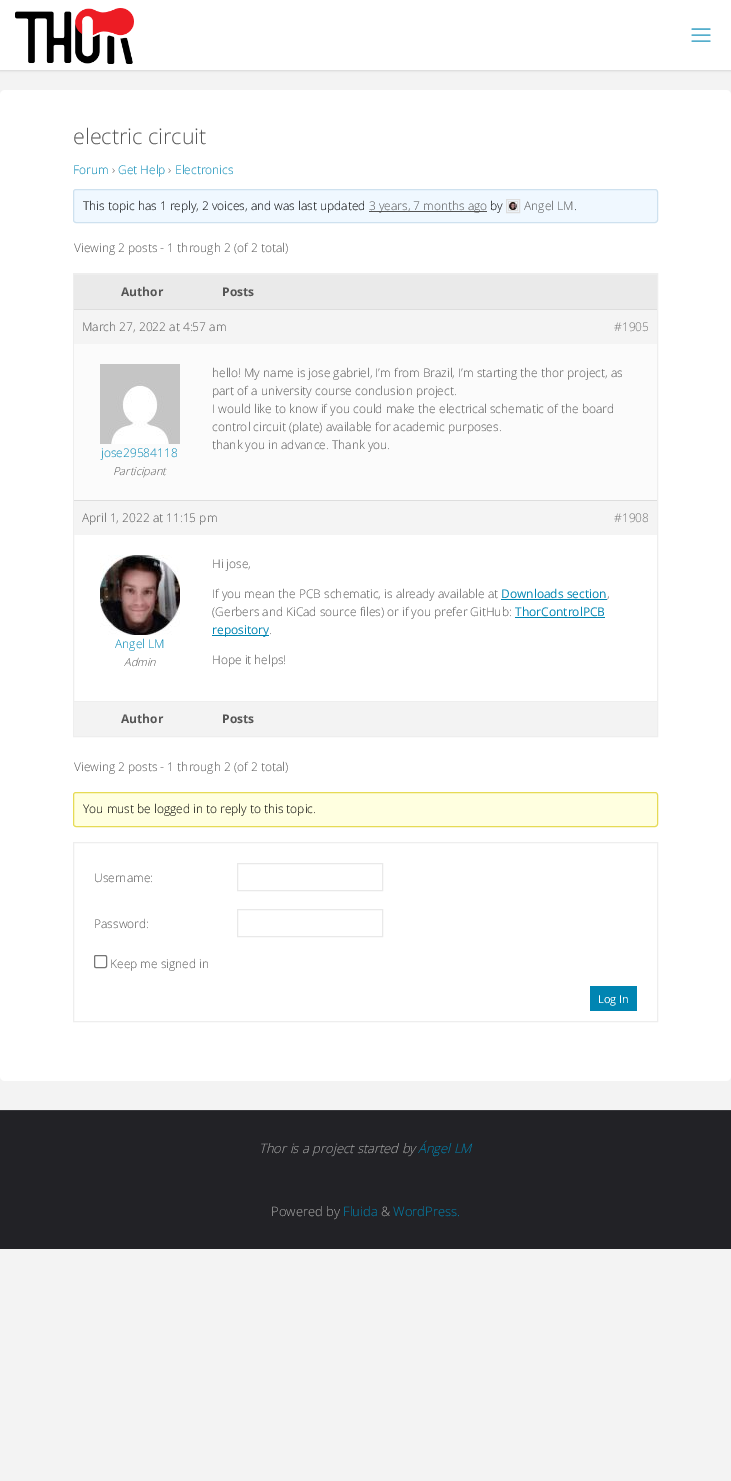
%!PS-Adobe-3.0
%%BoundingBox: 0 0 731 1481
%%LanguageLevel: 3
%%Pages: 1
%%EndComments
%%BeginProlog
/setink { dup -16 bitshift 255 div exch dup -8 bitshift 255 and 255 div exch 255 and 255 div setrgbcolor } def
/usefont { [ exch dup neg 0 0 3 -1 roll 0 0 ] selectfont } def
/setalpha { dup .setfillconstantalpha .setstrokeconstantalpha } def
/rrect { 5 dict begin { /r /h /w /y /x } { exch def } forall
  x r add y moveto x w add y 2 copy h add r arct x w add y h add x 1 index r arct
  x y h add x y r arct x y 2 copy exch w add exch r arct closepath end } def
/softshadow { 12 dict begin { /a /b /q /h /w /y /x } { exch def } forall gsave /was 0 def
  9 -2 -9 { dup b mul 4 div /e exch def 1 sub .425 mul 2.718 exch exp 1 add a .99 .min exch div /now exch def
    1 1 now sub 1 was sub div sub setalpha /was now def
    w h .min e 2 mul add 0 gt { x e sub y e sub w e 2 mul add h e 2 mul add
      q e add b .6 mul add w h .min 2 div e add .min 0 .max rrect fill } if } for grestore end } def
/drawimage { 5 dict begin { /h /w /y /x /name } { exch def } forall
  gsave x y translate w h scale
  w h 8 [w 0 0 h 0 0] name (r) file false 3 colorimage grestore end } def
%%EndProlog
%%BeginSetup
<< /PageSize [731 1481] /PageUsesTransparency true >> setpagedevice
%%EndSetup
%%Page: 1 1
0 .pushpdf14devicefilter
0 1481 translate 1 -1 scale
4 setmiterlimit
16#F3F3F3 setink
0 0 731 1481 rectfill
16#000000 setink
0 0 731 70 0 1.5 0.2 softshadow
16#FFFFFF setink
0 0 731 70 rectfill
(img1.raw) 15 8 119 56 drawimage
(img2.raw) 691 28 20 14 drawimage
0 90 731 991 5 rrect fill
/OpenSans-Light 21.5 usefont
16#555555 setink
73 144 moveto (electric circuit) show
/OpenSans-Light 12 usefont
16#0085B2 setink
73 174 moveto (Forum) show
16#555555 setink
112 174 moveto (›) show
16#0085B2 setink
118 174 moveto (Get Help) show
16#555555 setink
168 174 moveto (›) show
16#0085B2 setink
175 174 moveto (Electronics) show
16#F0F8FF setink
73.5 189.5 584 33 2.5 rrect gsave fill grestore
16#CEE1EF setink
stroke
16#000000 setink
83 210 moveto (This topic has 1 reply, 2 voices, and was last updated) show
16#555555 setink
369 211 118 1 rectfill
369 210 moveto (3 years, 7 months ago) show
16#000000 setink
490 210 moveto (by) show
16#DDDDDD setink
506.5 199.5 13 13 rectstroke
508.5 201.5 9 9 rectstroke
(img3.raw) 509 202 8 8 drawimage
16#555555 setink
524 210 moveto (Angel LM) show
16#000000 setink
574 210 moveto (.) show
16#555555 setink
74 252 moveto (Viewing 2 posts - 1 through 2 \(of 2 total\)) show
16#EEEEEE setink
73.5 273.5 584 463 rectstroke
16#EAEAEA setink
74 275 583 34 rectfill
16#EEEEEE setink
74 274 583 1 rectfill
/OpenSans-Bold 12 usefont
16#555555 setink
121 296 moveto (Author) show
222 296 moveto (Posts) show
16#F4F4F4 setink
74 310 583 34 rectfill
16#DDDDDD setink
74 309 583 1 rectfill
/OpenSans-Light 12 usefont
16#555555 setink
82 331 moveto (March 27, 2022 at 4:57 am) show
16#707070 setink
614 331 moveto (#1905) show
16#FBFBFB setink
74 344 583 156 rectfill
16#555555 setink
[
    [(hello! My name is jose gabriel, I’m from Brazil, I’m starting the thor project, as) 212 377]
    [(part of a university course conclusion project.) 212 395]
    [(I would like to know if you could make the electrical schematic of the board) 212 413]
    [(control circuit \(plate\) available for academic purposes.) 212 431]
    [(thank you in advance. Thank you.) 212 449]
] { aload pop moveto show } forall
(img4.raw) 100 364 80 80 drawimage
16#0085B2 setink
101 457 moveto (jose29584118) show
/OpenSans-LightItalic 11 usefont
16#555555 setink
113 475 moveto (Participant) show
16#F4F4F4 setink
74 501 583 34 rectfill
16#DDDDDD setink
74 500 583 1 rectfill
/OpenSans-Light 12 usefont
16#555555 setink
82 522 moveto (April 1, 2022 at 11:15 pm) show
16#707070 setink
614 522 moveto (#1908) show
(img5.raw) 100 555 80 80 drawimage
16#0085B2 setink
115 648 moveto (Angel LM) show
/OpenSans-LightItalic 11 usefont
16#555555 setink
124 666 moveto (Admin) show
/OpenSans-Light 12 usefont
212 568 moveto (Hi jose,) show
212 598 moveto (If you mean the PCB schematic, is already available at) show
/OpenSans-Regular 12 usefont
16#0085B2 setink
501 598 moveto (Downloads section) show
501 599 106 1 rectfill
/OpenSans-Light 12 usefont
16#555555 setink
607 598 moveto (,) show
212 616 moveto (\(Gerbers and KiCad source files\) or if you prefer GitHub:) show
/OpenSans-Regular 12 usefont
16#0085B2 setink
515 616 moveto (ThorControlPCB) show
515 617 90 1 rectfill
212 635 57 1 rectfill
212 634 moveto (repository) show
/OpenSans-Light 12 usefont
16#555555 setink
269 634 moveto (.) show
212 664 moveto (Hope it helps!) show
16#F3F3F3 setink
74 702 583 34 rectfill
16#EEEEEE setink
74 701 583 1 rectfill
/OpenSans-Bold 12 usefont
16#555555 setink
121 723 moveto (Author) show
222 723 moveto (Posts) show
/OpenSans-Light 12 usefont
74 771 moveto (Viewing 2 posts - 1 through 2 \(of 2 total\)) show
16#FFFFE0 setink
73.5 792.5 584 34 2.5 rrect gsave fill grestore
16#E6DB55 setink
stroke
16#000000 setink
83 813 moveto (You must be logged in to reply to this topic.) show
16#EEEEEE setink
73.5 842.5 584 179 rectstroke
16#555555 setink
94 882 moveto (Username:) show
16#E9E9E9 setink
237.5 863.5 145 27 rectstroke
16#555555 setink
94 928 moveto (Password:) show
16#E9E9E9 setink
237.5 909.5 145 27 rectstroke
16#767676 setink
94.5 955.5 12 12 1.5 rrect stroke
16#555555 setink
110 968 moveto (Keep me signed in) show
16#0085B2 setink
590 986 47 25 rectfill
/OpenSans-Regular 11 usefont
16#FFFFFF setink
598 1003 moveto (Log In) show
16#222226 setink
0 1111 731 138 rectfill
16#36363A setink
0 1110 731 1 rectfill
/OpenSans-LightItalic 13 usefont
16#AAAAAA setink
259 1153 moveto (Thor is a project started by) show
16#0085B2 setink
418 1153 moveto (Ángel LM) show
/OpenSans-Light 13 usefont
16#AAAAAA setink
271 1216 moveto (Powered by) show
16#0085B2 setink
343 1216 moveto (Fluida) show
16#AAAAAA setink
381 1216 moveto (&) show
16#0085B2 setink
393 1216 moveto (WordPress.) show
.poppdf14devicefilter showpage
%%EOF
